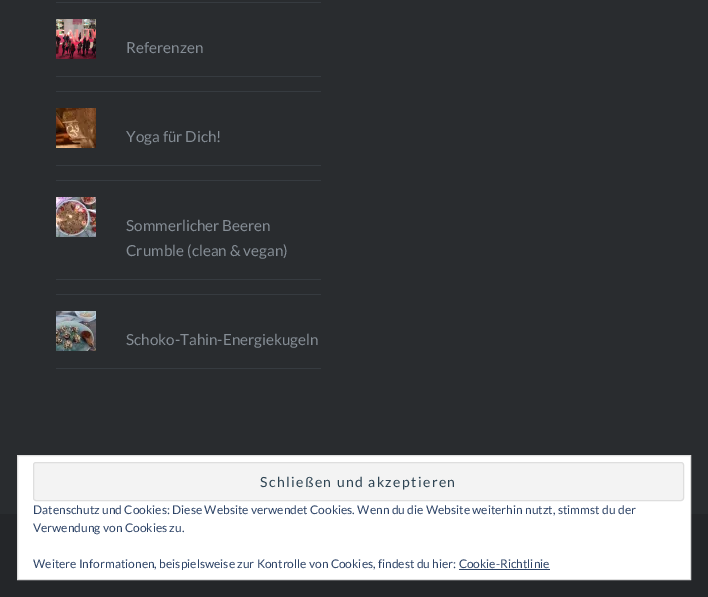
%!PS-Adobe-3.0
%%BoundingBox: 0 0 708 597
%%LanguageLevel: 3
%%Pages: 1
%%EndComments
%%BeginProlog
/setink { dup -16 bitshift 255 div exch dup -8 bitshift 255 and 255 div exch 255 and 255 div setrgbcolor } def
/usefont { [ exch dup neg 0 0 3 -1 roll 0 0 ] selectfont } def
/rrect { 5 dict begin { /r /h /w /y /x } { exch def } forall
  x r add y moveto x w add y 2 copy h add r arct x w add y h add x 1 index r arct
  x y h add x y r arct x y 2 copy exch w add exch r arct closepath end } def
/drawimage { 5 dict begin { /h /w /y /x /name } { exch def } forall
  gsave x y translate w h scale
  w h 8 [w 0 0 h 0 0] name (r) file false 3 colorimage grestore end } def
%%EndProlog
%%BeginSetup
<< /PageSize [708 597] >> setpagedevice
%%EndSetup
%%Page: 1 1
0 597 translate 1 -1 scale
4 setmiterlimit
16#292C2F setink
0 0 708 597 rectfill
16#363B40 setink
56 2 265 1 rectfill
56 76 265 1 rectfill
(img1.raw) 56 19 40 40 drawimage
/Lato-Regular 15.25 usefont
16#858D95 setink
126 53 moveto (Referenzen) show
16#363B40 setink
56 91 265 1 rectfill
56 165 265 1 rectfill
(img2.raw) 56 108 40 40 drawimage
16#858D95 setink
126 142 moveto (Yoga für Dich!) show
16#363B40 setink
56 180 265 1 rectfill
56 279 265 1 rectfill
(img3.raw) 56 197 40 40 drawimage
16#858D95 setink
126 231 moveto (Sommerlicher Beeren) show
126 256 moveto (Crumble \(clean & vegan\)) show
16#363B40 setink
56 294 265 1 rectfill
56 368 265 1 rectfill
(img4.raw) 56 311 40 40 drawimage
16#858D95 setink
126 345 moveto (Schoko-Tahin-Energiekugeln) show
16#242629 setink
0 514 708 83 rectfill
16#FFFFFF setink
17.5 455.5 moveto 690.5 455.5 lineto 690.5 579.5 lineto 17.5 579.5 lineto closepath gsave fill grestore
16#DEDEDE setink
stroke
16#F3F3F3 setink
33.5 462.5 650 38 2.5 rrect gsave fill grestore
16#DEDEDE setink
stroke
/Lato-Regular 14 usefont
16#2E4453 setink
260 487 moveto 1.4 0 (Schließen und akzeptieren) ashow
/Lato-Regular 12 usefont
16#2E4467 setink
[
    [(Datenschutz und Cookies: Diese Website verwendet Cookies. Wenn du die Website weiterhin nutzt, stimmst du der) 33 514]
    [(Verwendung von Cookies zu.) 33 532]
    [(Weitere Informationen, beispielsweise zur Kontrolle von Cookies, findest du hier: Cookie-Richtlinie) 33 568]
] { aload pop moveto show } forall
459 569 91 1 rectfill
showpage
%%EOF
